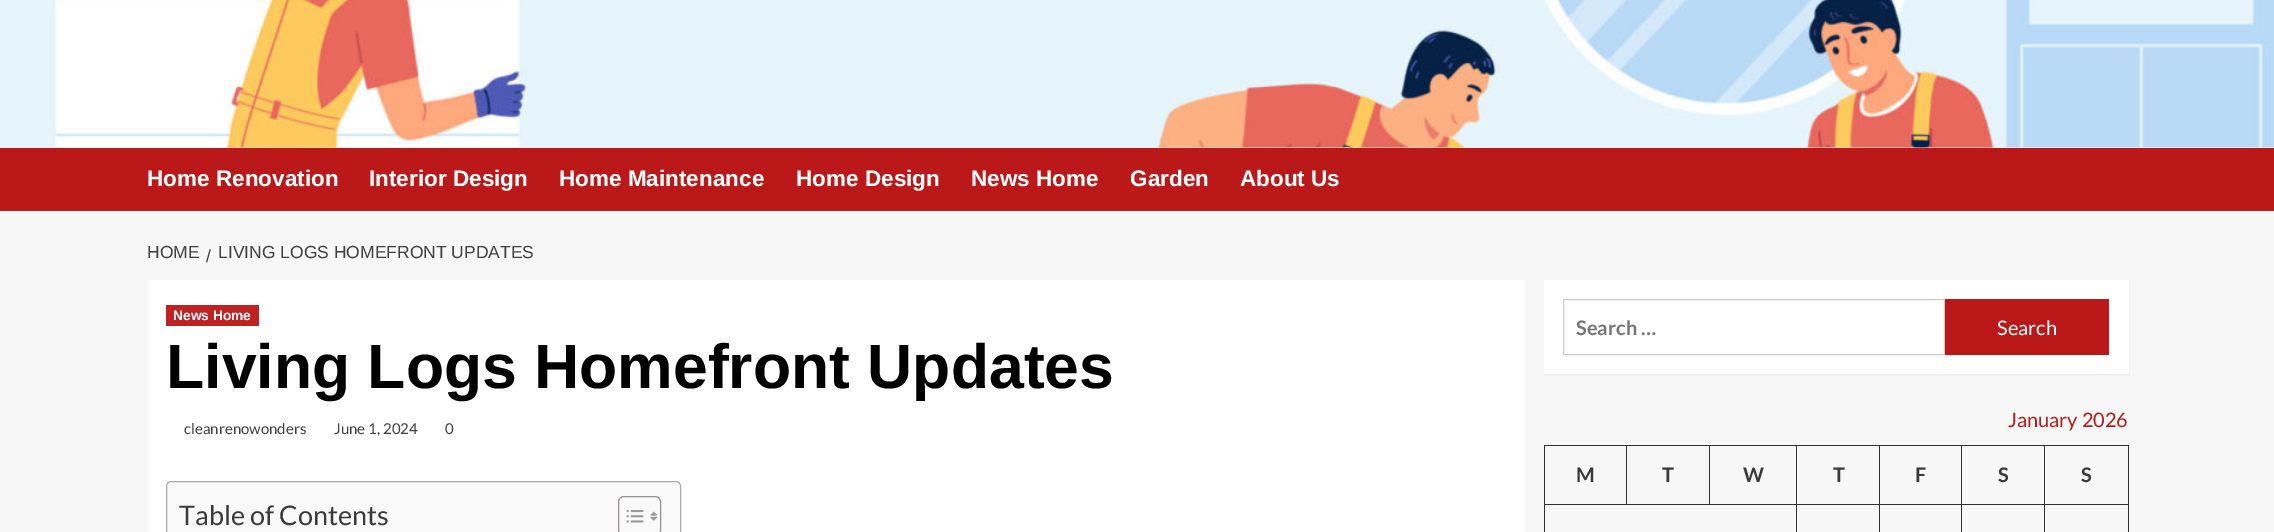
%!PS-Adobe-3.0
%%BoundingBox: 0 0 2274 532
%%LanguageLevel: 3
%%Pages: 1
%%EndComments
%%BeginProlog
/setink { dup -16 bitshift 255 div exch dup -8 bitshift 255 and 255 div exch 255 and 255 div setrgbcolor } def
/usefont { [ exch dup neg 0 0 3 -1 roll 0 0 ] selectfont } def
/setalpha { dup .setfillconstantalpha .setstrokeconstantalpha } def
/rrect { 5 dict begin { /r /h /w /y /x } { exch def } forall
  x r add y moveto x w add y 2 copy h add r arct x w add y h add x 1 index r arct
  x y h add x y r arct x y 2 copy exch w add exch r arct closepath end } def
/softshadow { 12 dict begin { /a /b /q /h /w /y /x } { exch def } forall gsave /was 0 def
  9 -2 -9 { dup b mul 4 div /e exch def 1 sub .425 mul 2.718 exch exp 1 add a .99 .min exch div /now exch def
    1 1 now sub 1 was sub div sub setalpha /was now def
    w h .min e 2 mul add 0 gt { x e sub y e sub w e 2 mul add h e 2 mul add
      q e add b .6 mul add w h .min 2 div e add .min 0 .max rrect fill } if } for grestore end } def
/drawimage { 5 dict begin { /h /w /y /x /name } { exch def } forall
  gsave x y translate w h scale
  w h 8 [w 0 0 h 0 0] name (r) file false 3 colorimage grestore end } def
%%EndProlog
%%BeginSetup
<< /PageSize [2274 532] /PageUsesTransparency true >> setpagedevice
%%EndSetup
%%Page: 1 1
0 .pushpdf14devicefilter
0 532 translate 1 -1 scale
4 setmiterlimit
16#F7F7F7 setink
0 0 2274 532 rectfill
(img1.raw) 0 0 2274 148 drawimage
16#BB1919 setink
0 148 2274 63 rectfill
/LiberationSans-Bold 22.5 usefont
16#FFFFFF setink
[
    [(Home Renovation) 147 186]
    [(Interior Design) 369 186]
    [(Home Maintenance) 559 186]
    [(Home Design) 796 186]
    [(News Home) 971 186]
    [(Garden) 1130 186]
    [(About Us) 1240 186]
] { aload pop moveto show } forall
/LiberationSans-Regular 17.5 usefont
16#404040 setink
[
    [(HOME) 147 258]
    [(/) 206 262]
    [(LIVING LOGS HOMEFRONT UPDATES) 218 258]
] { aload pop moveto show } forall
16#FFFFFF setink
148 280 1377 252 rectfill
16#BE2222 setink
166 305 93 21 rectfill
/LiberationSans-Bold 13.75 usefont
16#FFFFFF setink
173 320 moveto (News Home) show
/LiberationSans-Bold 62.5 usefont
16#000000 setink
166 388 moveto (Living Logs Homefront Updates) show
/Lato-Regular 15 usefont
16#404040 setink
[
    [(cleanrenowonders) 184 434]
    [(June 1, 2024) 334 434]
    [(0) 445 434]
] { aload pop moveto show } forall
16#F9F9F9 setink
166.5 481.5 514 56 4.5 rrect gsave fill grestore
16#AAAAAA setink
stroke
/Lato-Regular 27 usefont
16#3A3A3A setink
179 525 moveto (Table of Contents) show
16#999191 setink
618.5 496.5 42 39 5.5 rrect stroke
(img2.raw) 626 510 18 13 drawimage
(img3.raw) 650 511 8 10 drawimage
16#000000 setink
1544 281 585 94 0 1 0.05 softshadow
16#FFFFFF setink
1544 280 585 94 rectfill
16#CCCCCC setink
1563.5 299.5 381 55 rectstroke
/Lato-Bold 20 usefont
16#757575 setink
1576 335 moveto (Search …) show
16#BB1919 setink
1945 299 164 56 rectfill
/Lato-Regular 20 usefont
16#FFFFFF setink
1997 335 moveto (Search) show
16#BB1919 setink
2008 427 moveto (January 2026) show
[
    [2044 445 85 1 16#313131]
    [2044 504 85 1 16#313131]
    [2044 504 1 28 16#313131]
    [1961 504 84 1 16#313131]
    [2044 445 1 60 16#313131]
    [1961 445 84 1 16#313131]
    [1961 504 1 28 16#313131]
    [1879 504 84 1 16#313131]
    [1961 445 1 60 16#313131]
    [1879 445 84 1 16#313131]
    [1879 504 1 28 16#313131]
    [1796 504 84 1 16#313131]
    [1879 445 1 60 16#313131]
    [1796 445 84 1 16#313131]
    [1796 504 1 28 16#313131]
    [1544 504 254 1 16#313131]
    [1796 445 1 60 16#313131]
    [1709 445 89 1 16#313131]
    [1709 445 1 60 16#313131]
    [1626 445 84 1 16#313131]
    [1626 445 1 60 16#313131]
    [1544 445 84 1 16#313131]
    [1544 504 1 28 16#313131]
    [1544 445 1 60 16#313131]
] { aload pop setink rectfill } forall
/Lato-Bold 20 usefont
16#3A3A3A setink
[
    [(M) 1576 482]
    [(T) 1662 482]
    [(W) 1743 482]
    [(T) 1833 482]
    [(F) 1915 482]
    [(S) 1998 482]
] { aload pop moveto show } forall
16#313131 setink
2128 504 1 28 rectfill
2128 445 1 60 rectfill
16#3A3A3A setink
2081 482 moveto (S) show
.poppdf14devicefilter showpage
%%EOF
